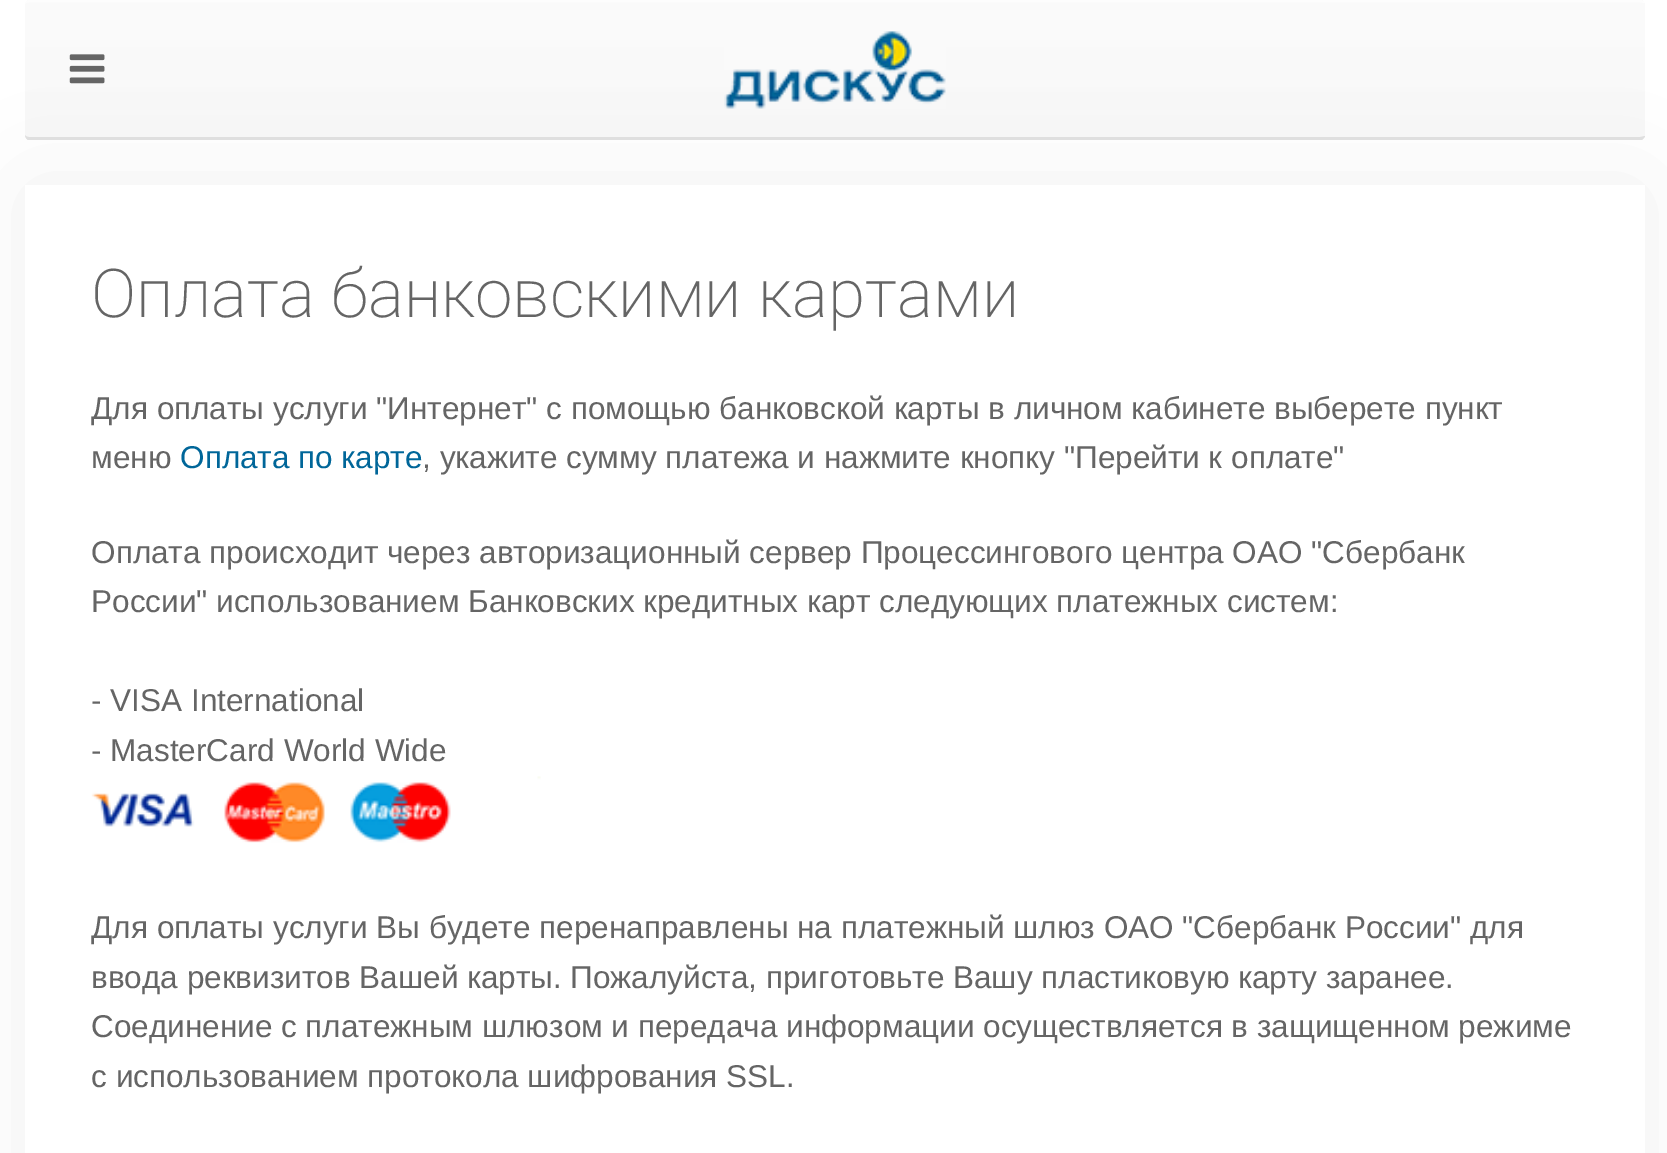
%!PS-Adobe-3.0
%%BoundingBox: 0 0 1667 1153
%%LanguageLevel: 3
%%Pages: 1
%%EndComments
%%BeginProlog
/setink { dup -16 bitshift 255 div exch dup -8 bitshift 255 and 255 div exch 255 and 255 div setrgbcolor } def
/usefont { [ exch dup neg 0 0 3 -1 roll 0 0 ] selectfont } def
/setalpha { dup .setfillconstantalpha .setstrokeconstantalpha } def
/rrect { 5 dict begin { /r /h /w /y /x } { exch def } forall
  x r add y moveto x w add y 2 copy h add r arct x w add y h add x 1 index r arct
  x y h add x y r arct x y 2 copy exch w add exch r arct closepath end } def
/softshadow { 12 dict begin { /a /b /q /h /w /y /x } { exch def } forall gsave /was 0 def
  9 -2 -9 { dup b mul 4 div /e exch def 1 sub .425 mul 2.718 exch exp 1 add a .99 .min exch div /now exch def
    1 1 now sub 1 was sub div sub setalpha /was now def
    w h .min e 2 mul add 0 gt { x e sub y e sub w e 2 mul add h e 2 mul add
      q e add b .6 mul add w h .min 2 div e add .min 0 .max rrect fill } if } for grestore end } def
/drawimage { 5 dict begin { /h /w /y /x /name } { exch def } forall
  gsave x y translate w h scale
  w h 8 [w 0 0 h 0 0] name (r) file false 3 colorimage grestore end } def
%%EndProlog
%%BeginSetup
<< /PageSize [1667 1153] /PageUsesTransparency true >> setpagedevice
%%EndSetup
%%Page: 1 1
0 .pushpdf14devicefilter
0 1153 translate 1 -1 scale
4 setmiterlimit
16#FFFFFF setink
0 0 1667 1153 rectfill
gsave
25 0 1620 140 5 rrect clip newpath
gsave 25 0 moveto 1645 0 lineto 1645 2 lineto 25 2 lineto closepath clip newpath
<< /ShadingType 2 /ColorSpace /DeviceRGB /Coords [835 -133 835 2.3] /Extend [true true] /Function << /FunctionType 2 /Domain [0 1] /C0 [0.98 0.98 0.98] /C1 [0.969 0.969 0.969] /N 1 >> >> shfill grestore
gsave 25 2 moveto 1645 2 lineto 1645 137 lineto 25 137 lineto closepath clip newpath
<< /ShadingType 2 /ColorSpace /DeviceRGB /Coords [835 2.2 835 137] /Extend [true true] /Function << /FunctionType 2 /Domain [0 1] /C0 [0.984 0.984 0.984] /C1 [0.973 0.973 0.973] /N 1 >> >> shfill grestore
gsave 25 137 moveto 1645 137 lineto 1645 140 lineto 25 140 lineto closepath clip newpath
<< /ShadingType 2 /ColorSpace /DeviceRGB /Coords [835 137 835 272] /Extend [true true] /Function << /FunctionType 2 /Domain [0 1] /C0 [0.98 0.98 0.98] /C1 [0.969 0.969 0.969] /N 1 >> >> shfill grestore
grestore
0.8 setalpha
29 0 moveto 1640 0 lineto 1642 0 1645 1 1645 3 curveto 1644 3 1642 2 1640 2 curveto 29 2 lineto 27 2 25 3 25 4 curveto 25 2 27 0 29 0 curveto closepath fill
0.1 setalpha
16#000000 setink
1645 136 moveto 1645 137 1643 139 1642 140 curveto 28 140 lineto 26 139 25 136 25 135 curveto 25 136 27 137 29 137 curveto 1640 137 lineto 1642 137 1644 136 1645 136 curveto closepath fill
1 setalpha
25 185 1620 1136 0 56 0.05 softshadow
(img1.raw) 69 54 36 30 drawimage
(img2.raw) 724 31 222 78 drawimage
16#FFFFFF setink
25 185 1620 968 rectfill
/Roboto-ExtraLight 67.5 usefont
16#656565 setink
91 317 moveto (Оплата банковскими картами) show
/LiberationSans-Regular 31.5 usefont
91 419 moveto (Для оплаты услуги "Интернет" с помощью банковской карты в личном кабинете выберете пункт) show
91 468 moveto (меню) show
16#006699 setink
180 468 moveto (Оплата по карте) show
16#656565 setink
[
    [(, укажите сумму платежа и нажмите кнопку "Перейти к оплате") 422 468]
    [(Оплата происходит через авторизационный сервер Процессингового центра ОАО "Сбербанк) 91 563]
    [(России" использованием Банковских кредитных карт следующих платежных систем:) 91 612]
    [(- VISA International) 91 711]
    [(- MasterCard World Wide) 91 761]
] { aload pop moveto show } forall
(img3.raw) 91 776 450 67 drawimage
[
    [(Для оплаты услуги Вы будете перенаправлены на платежный шлюз ОАО "Сбербанк России" для) 91 938]
    [(ввода реквизитов Вашей карты. Пожалуйста, приготовьте Вашу пластиковую карту заранее.) 91 988]
    [(Соединение с платежным шлюзом и передача информации осуществляется в защищенном режиме) 91 1037]
    [(с использованием протокола шифрования SSL.) 91 1087]
] { aload pop moveto show } forall
.poppdf14devicefilter showpage
%%EOF
